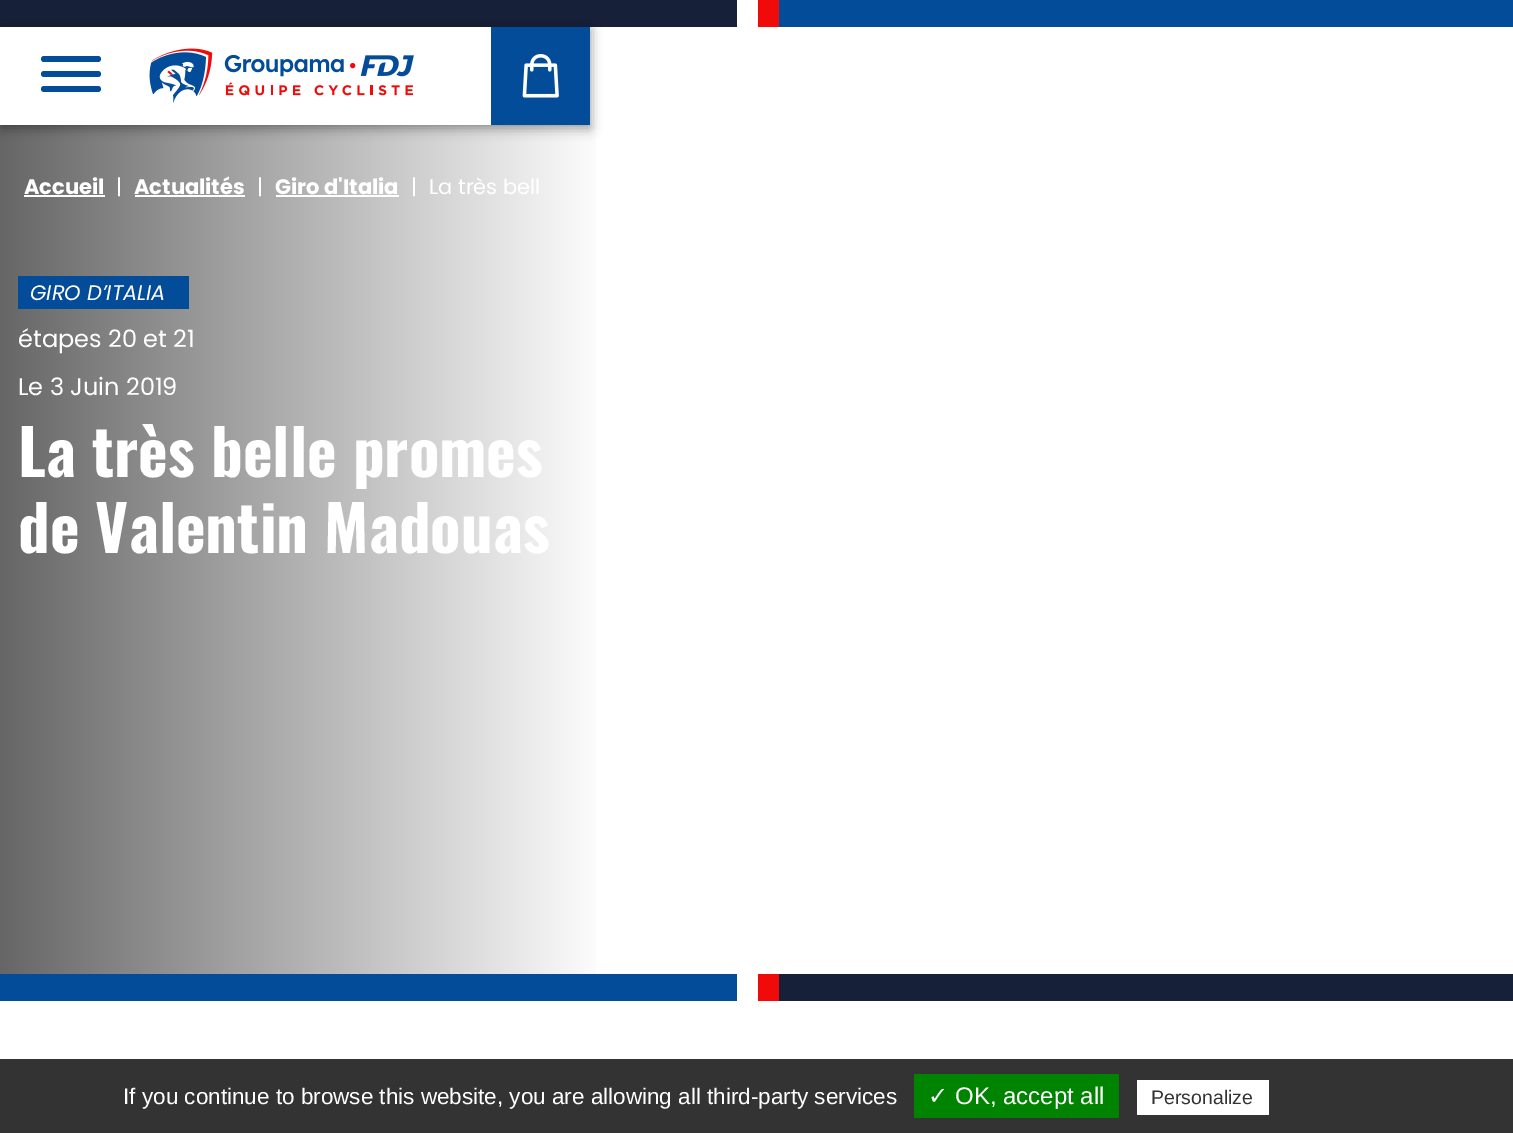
%!PS-Adobe-3.0
%%BoundingBox: 0 0 1513 1133
%%LanguageLevel: 3
%%Pages: 1
%%EndComments
%%BeginProlog
/setink { dup -16 bitshift 255 div exch dup -8 bitshift 255 and 255 div exch 255 and 255 div setrgbcolor } def
/usefont { [ exch dup neg 0 0 3 -1 roll 0 0 ] selectfont } def
/setalpha { dup .setfillconstantalpha .setstrokeconstantalpha } def
/rrect { 5 dict begin { /r /h /w /y /x } { exch def } forall
  x r add y moveto x w add y 2 copy h add r arct x w add y h add x 1 index r arct
  x y h add x y r arct x y 2 copy exch w add exch r arct closepath end } def
/softshadow { 12 dict begin { /a /b /q /h /w /y /x } { exch def } forall gsave /was 0 def
  9 -2 -9 { dup b mul 4 div /e exch def 1 sub .425 mul 2.718 exch exp 1 add a .99 .min exch div /now exch def
    1 1 now sub 1 was sub div sub setalpha /was now def
    w h .min e 2 mul add 0 gt { x e sub y e sub w e 2 mul add h e 2 mul add
      q e add b .6 mul add w h .min 2 div e add .min 0 .max rrect fill } if } for grestore end } def
/drawimage { 5 dict begin { /h /w /y /x /name } { exch def } forall
  gsave x y translate w h scale
  w h 8 [w 0 0 h 0 0] name (r) file false 3 colorimage grestore end } def
%%EndProlog
%%BeginSetup
<< /PageSize [1513 1133] /PageUsesTransparency true >> setpagedevice
%%EndSetup
%%Page: 1 1
0 .pushpdf14devicefilter
0 1133 translate 1 -1 scale
4 setmiterlimit
16#FFFFFF setink
0 0 1513 1133 rectfill
[
    [779 0 734 27 16#034C99]
    [0 0 737 27 16#162039]
    [758 0 21 27 16#F00A0A]
] { aload pop setink rectfill } forall
gsave 0 27 moveto 596 27 lineto 596 974 lineto 0 974 lineto closepath clip newpath
<< /ShadingType 2 /ColorSpace /DeviceRGB /Coords [0 500 606 500] /Extend [true true] /Function << /FunctionType 2 /Domain [0 1] /C0 [0.4 0.4 0.4] /C1 [1 1 1] /N 1 >> >> shfill grestore
16#000000 setink
0 30 590 98 0 6 0.4 softshadow
16#FFFFFF setink
0 27 491 98 rectfill
16#034C99 setink
41 71 60 6 3 rrect fill
41 56 60 6 3 rrect fill
41 86 60 6 3 rrect fill
(img1.raw) 149 48 265 55 drawimage
491 27 99 98 rectfill
(img2.raw) 522 54 37 44 drawimage
/Poppins-Bold 21 usefont
16#FFFFFF setink
24 194 moveto (Accueil) show
24 195 81 2 rectfill
/Poppins-Regular 21 usefont
116 194 moveto (|) show
/Poppins-Bold 21 usefont
134 194 moveto (Actualités) show
135 195 110 2 rectfill
/Poppins-Regular 21 usefont
257 194 moveto (|) show
/Poppins-Bold 21 usefont
275 194 moveto (Giro d'Italia) show
276 195 123 2 rectfill
/Poppins-Regular 21 usefont
411 194 moveto (|) show
429 194 moveto (La très bell) show
16#034C99 setink
18 276 171 33 rectfill
/Poppins-Italic 21 usefont
16#FFFFFF setink
30 300 moveto (GIRO D’ITALIA) show
/Poppins-Regular 24 usefont
18 347 moveto (étapes 20 et 21) show
18 395 moveto (Le 3 Juin 2019) show
/Oswald-Bold 63 usefont
18 477 moveto (La très belle promes) show
18 553 moveto (de Valentin Madouas) show
[
    [779 974 734 27 16#162039]
    [0 974 737 27 16#034C99]
    [758 974 21 27 16#F00A0A]
    [0 1059 1513 74 16#333333]
] { aload pop setink rectfill } forall
/LiberationSans-Regular 22.5 usefont
16#FFFFFF setink
123 1104 moveto (If you continue to browse this website, you are allowing all third-party services) show
16#008300 setink
914 1074 205 44 rectfill
/DejaVuSans-Regular 24 usefont
16#FFFFFF setink
928 1104 moveto (✓) show
/LiberationSans-Regular 24 usefont
955 1104 moveto (OK, accept all) show
1137 1080 132 35 rectfill
/LiberationSans-Regular 19.5 usefont
16#333333 setink
1151 1104 moveto (Personalize) show
.poppdf14devicefilter showpage
%%EOF
